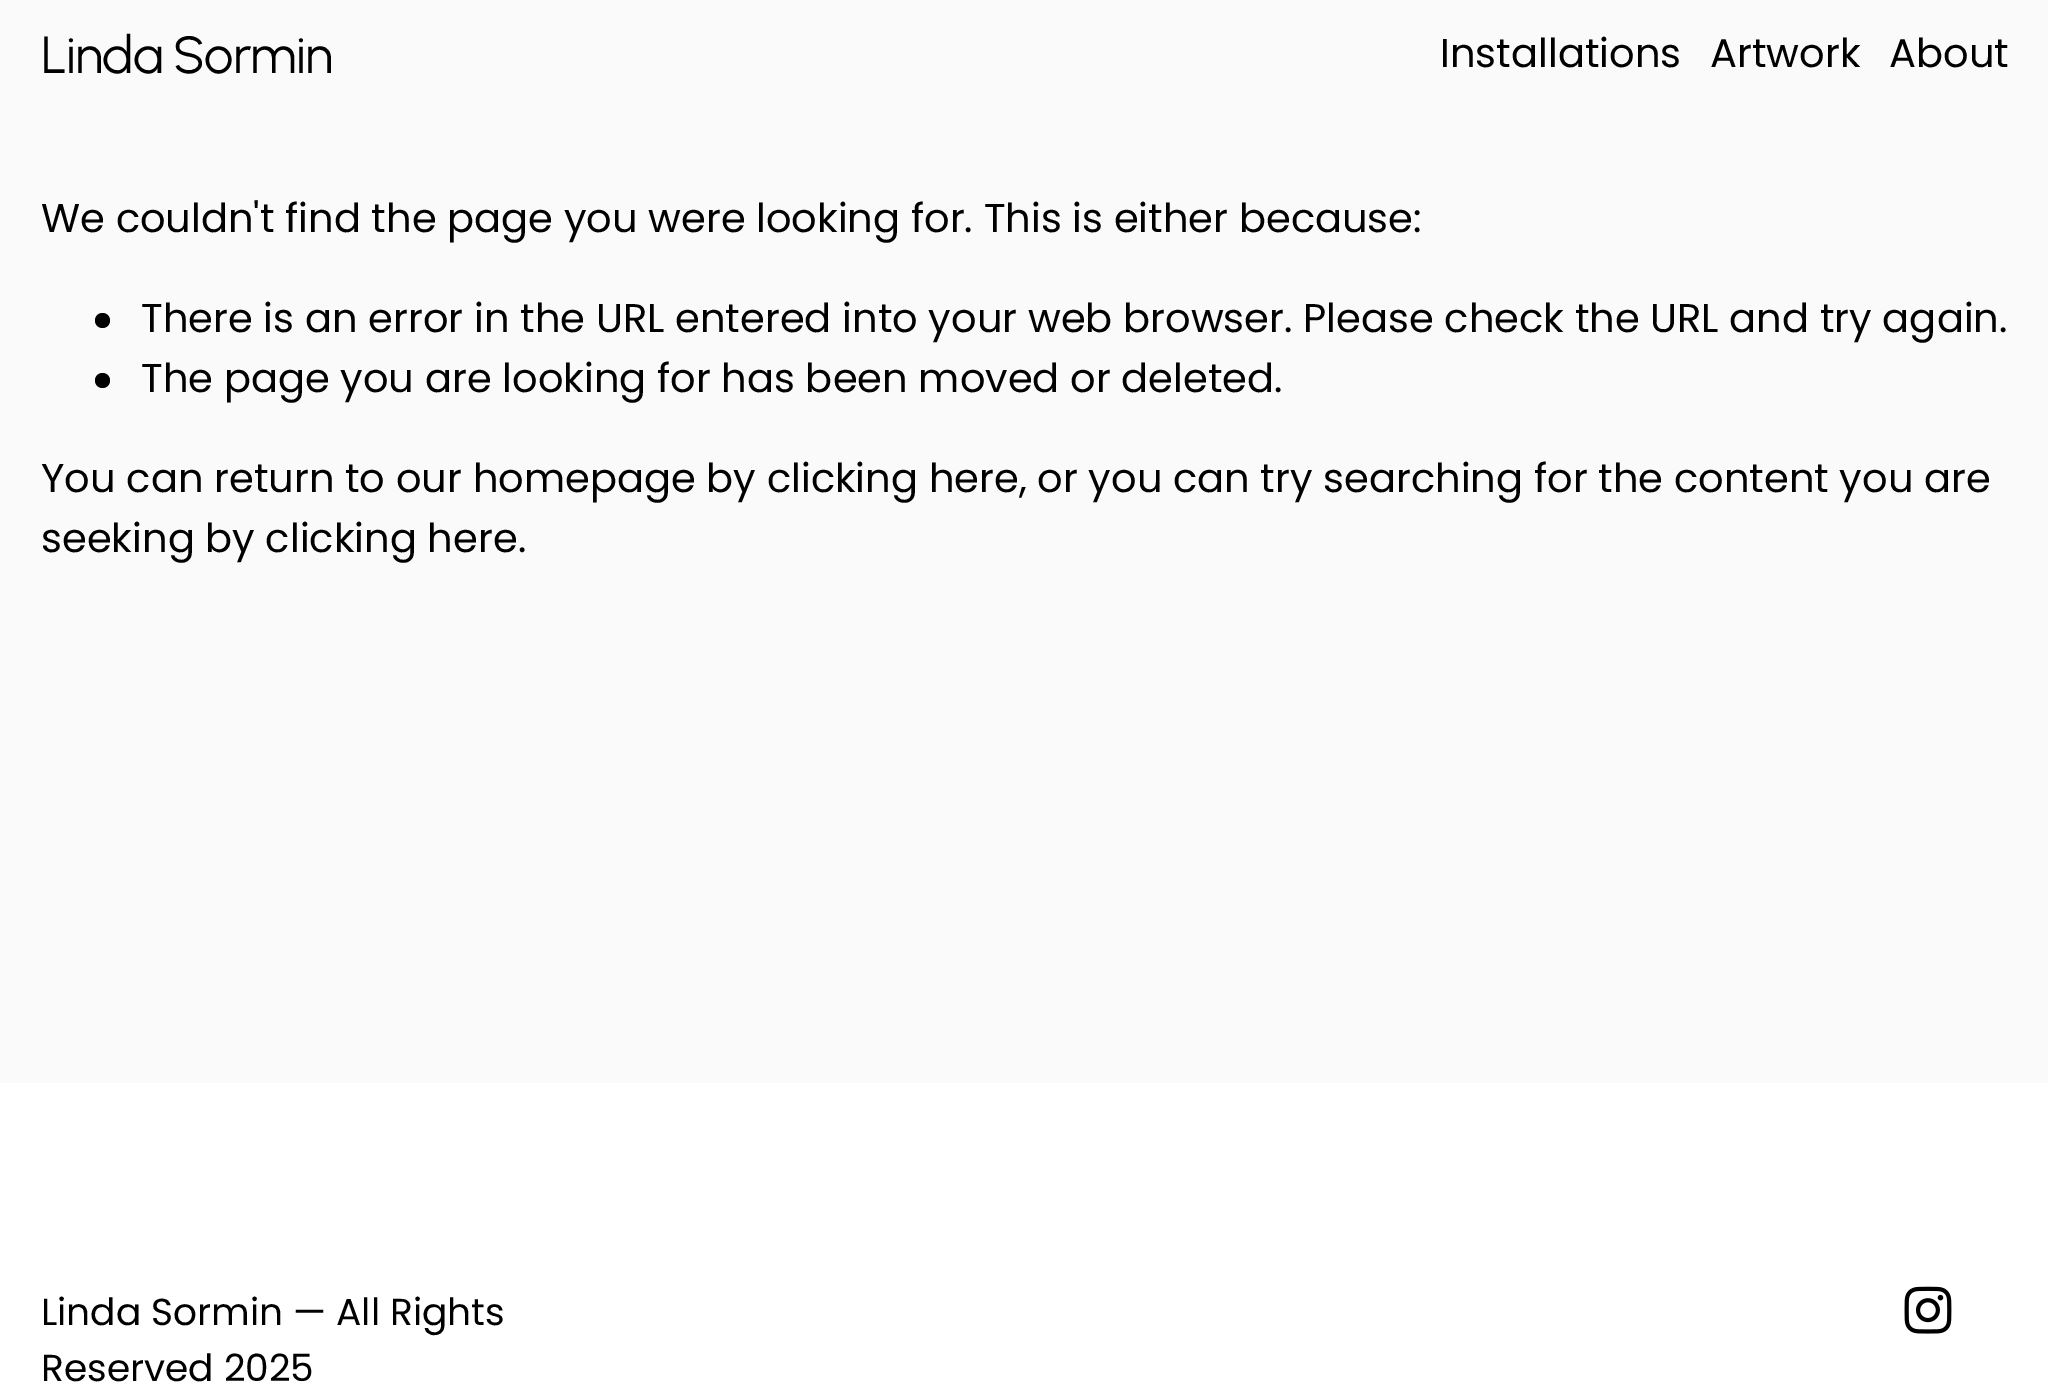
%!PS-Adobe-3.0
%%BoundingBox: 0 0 2048 1396
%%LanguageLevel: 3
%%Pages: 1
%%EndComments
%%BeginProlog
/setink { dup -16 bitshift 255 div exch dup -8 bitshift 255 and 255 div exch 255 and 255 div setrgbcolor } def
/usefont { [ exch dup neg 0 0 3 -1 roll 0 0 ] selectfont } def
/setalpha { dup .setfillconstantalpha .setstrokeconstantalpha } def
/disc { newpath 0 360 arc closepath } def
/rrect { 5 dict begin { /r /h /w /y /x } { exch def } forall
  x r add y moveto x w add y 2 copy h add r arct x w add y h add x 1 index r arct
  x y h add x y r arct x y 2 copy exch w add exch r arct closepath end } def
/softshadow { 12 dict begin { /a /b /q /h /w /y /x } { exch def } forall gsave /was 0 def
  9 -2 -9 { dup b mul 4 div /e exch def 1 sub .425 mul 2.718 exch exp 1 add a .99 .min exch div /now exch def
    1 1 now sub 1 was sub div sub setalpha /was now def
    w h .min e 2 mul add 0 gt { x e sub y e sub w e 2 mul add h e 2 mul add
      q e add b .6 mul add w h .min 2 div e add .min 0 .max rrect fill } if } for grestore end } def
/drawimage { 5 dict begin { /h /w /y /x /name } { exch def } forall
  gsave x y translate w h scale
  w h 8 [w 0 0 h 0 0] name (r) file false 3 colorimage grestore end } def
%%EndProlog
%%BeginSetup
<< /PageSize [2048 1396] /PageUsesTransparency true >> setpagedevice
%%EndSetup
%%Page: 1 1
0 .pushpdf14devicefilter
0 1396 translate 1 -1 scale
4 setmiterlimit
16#FAFAFA setink
0 0 2048 1396 rectfill
16#000000 setink
102.5 320.5 7.5 disc fill
gsave
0 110 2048 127 rectclip
16#FFFFFF setink
-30 0 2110 170 0 60 0.15 softshadow
grestore
/Urbanist-Regular 52.25 usefont
41 73 moveto -1 0 (Linda Sormin) ashow
/Poppins-Regular 40 usefont
[
    [(Installations) 1440 67]
    [(Artwork) 1710 67]
    [(About) 1889 67]
    [(We couldn't find the page you were looking for. This is either because:) 41 232]
    [(There is an error in the URL entered into your web browser. Please check the URL and try again.) 141 332]
] { aload pop moveto show } forall
102.5 380.5 7.5 disc fill
[
    [(The page you are looking for has been moved or deleted.) 141 392]
    [(You can return to our homepage by clicking here, or you can try searching for the content you are) 41 492]
    [(seeking by clicking here.) 41 552]
] { aload pop moveto show } forall
16#FFFFFF setink
0 1083 2048 313 rectfill
/Poppins-Regular 37.5 usefont
16#000000 setink
41 1325 moveto (Linda Sormin — All Rights) show
41 1381 moveto (Reserved 2025) show
(img1.raw) 1904 1286 48 48 drawimage
.poppdf14devicefilter showpage
%%EOF
